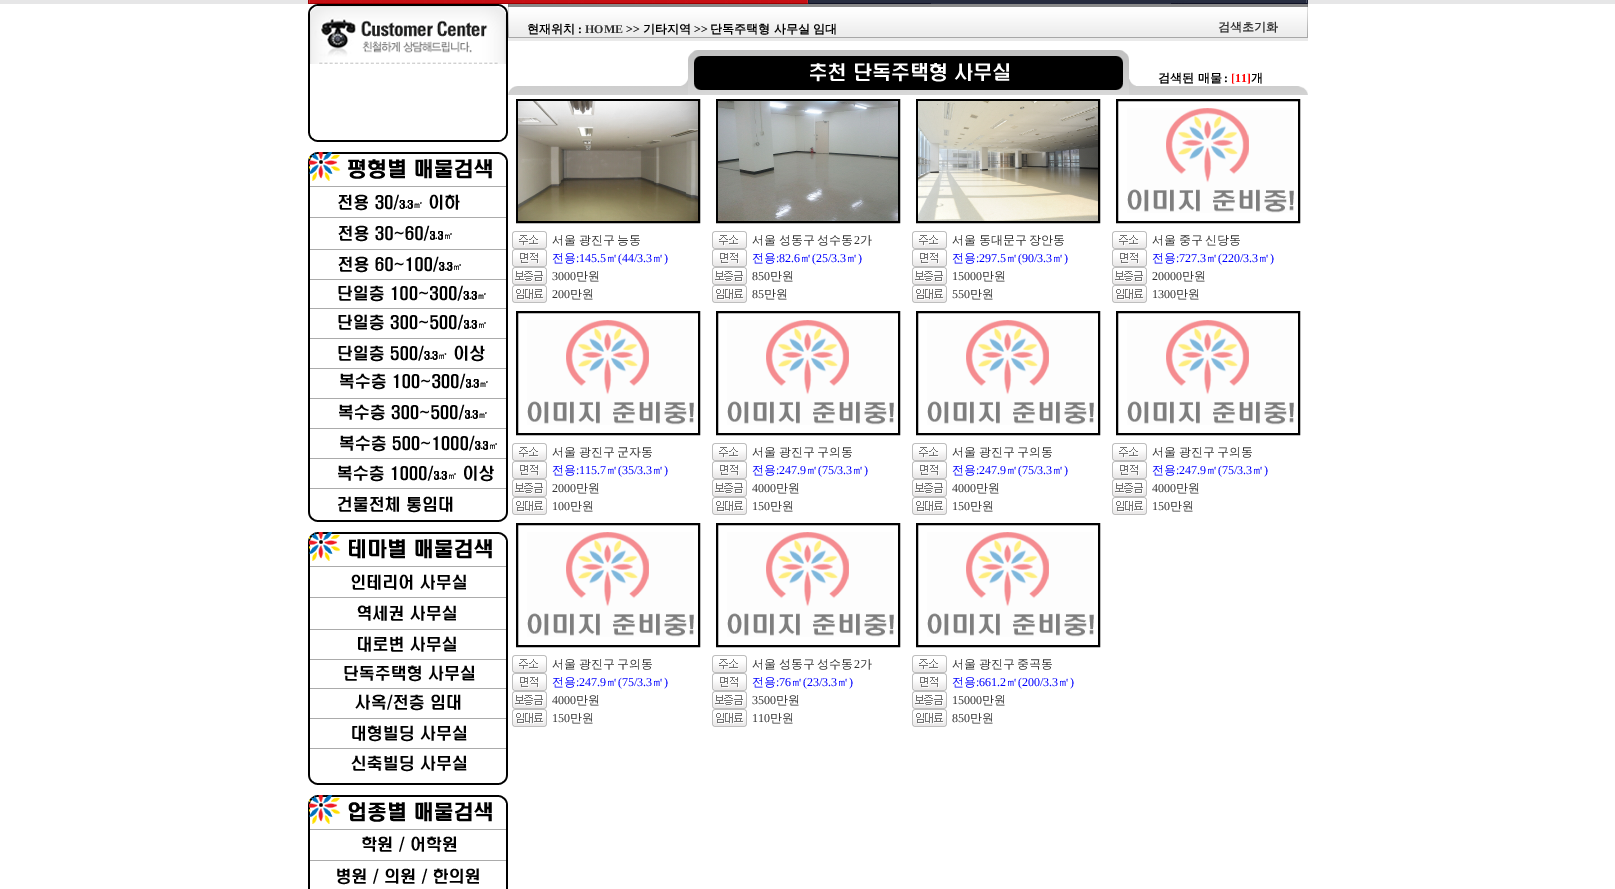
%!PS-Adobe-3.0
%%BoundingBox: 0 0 1615 889
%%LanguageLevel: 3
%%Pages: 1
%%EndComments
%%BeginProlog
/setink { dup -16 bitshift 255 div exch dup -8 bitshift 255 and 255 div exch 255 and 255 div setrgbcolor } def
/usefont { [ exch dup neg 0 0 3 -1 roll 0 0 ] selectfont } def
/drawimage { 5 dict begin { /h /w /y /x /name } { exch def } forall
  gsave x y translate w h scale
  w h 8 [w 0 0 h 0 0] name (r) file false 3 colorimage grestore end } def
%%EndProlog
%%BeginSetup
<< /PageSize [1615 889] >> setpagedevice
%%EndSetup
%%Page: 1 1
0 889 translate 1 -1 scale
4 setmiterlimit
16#FFFFFF setink
0 0 1615 889 rectfill
16#E6E6E7 setink
0 0 1615 4 rectfill
(img1.raw) 308 0 115 4 drawimage
(img2.raw) 423 0 90 4 drawimage
(img3.raw) 513 0 90 4 drawimage
(img4.raw) 603 0 88 4 drawimage
(img5.raw) 691 0 117 4 drawimage
(img6.raw) 808 0 123 4 drawimage
16#272C3F setink
931 0 240 4 rectfill
(img7.raw) 1171 0 137 4 drawimage
(img8.raw) 308 4 200 60 drawimage
(img9.raw) 308 64 200 78 drawimage
(img10.raw) 308 152 200 35 drawimage
(img11.raw) 308 187 200 31 drawimage
(img12.raw) 308 218 200 32 drawimage
(img13.raw) 308 250 200 30 drawimage
(img14.raw) 308 280 200 29 drawimage
(img15.raw) 308 309 200 30 drawimage
(img16.raw) 308 339 200 30 drawimage
(img17.raw) 308 369 200 30 drawimage
(img18.raw) 308 399 200 30 drawimage
(img19.raw) 308 429 200 30 drawimage
(img20.raw) 308 459 200 30 drawimage
(img21.raw) 308 489 200 33 drawimage
(img22.raw) 308 532 200 35 drawimage
(img23.raw) 308 567 200 31 drawimage
(img24.raw) 308 598 200 32 drawimage
(img25.raw) 308 630 200 30 drawimage
(img26.raw) 308 660 200 29 drawimage
(img27.raw) 308 689 200 30 drawimage
(img28.raw) 308 719 200 30 drawimage
(img29.raw) 308 749 200 36 drawimage
(img30.raw) 308 795 200 35 drawimage
(img31.raw) 308 830 200 31 drawimage
(img32.raw) 308 861 200 28 drawimage
(img33.raw) 508 4 800 37 drawimage
(img34.raw) 508 4 1 33 drawimage
/WenQuanYiZenHei-Bold 12 usefont
16#000000 setink
527 33 moveto (현재위치) show
/LiberationSerif-Bold 12 usefont
578 33 moveto (:) show
16#333333 setink
585 33 moveto (HOME) show
16#000000 setink
626 33 moveto (>>) show
/WenQuanYiZenHei-Bold 12 usefont
643 33 moveto (기타지역) show
/LiberationSerif-Bold 12 usefont
694 33 moveto (>>) show
/WenQuanYiZenHei-Bold 12 usefont
710 33 moveto (단독주택형 사무실 임대) show
16#333333 setink
1218 31 moveto (검색초기화) show
(img34.raw) 1307 4 1 33 drawimage
(img35.raw) 508 50 800 45 drawimage
16#000000 setink
1158 82 moveto (검색된 매물) show
/LiberationSerif-Bold 12 usefont
1224 82 moveto (:) show
16#FF0000 setink
1231 82 moveto ([11]) show
/WenQuanYiZenHei-Bold 12 usefont
16#000000 setink
1251 82 moveto (개) show
516.5 99.5 183 123 rectstroke
517.5 100.5 181 121 rectstroke
(img36.raw) 518 101 180 120 drawimage
(img37.raw) 512 231 35 18 drawimage
/WenQuanYiZenHei-Medium 12 usefont
16#333333 setink
552 244 moveto -1 0 32 (서울 광진구 능동) widthshow
(img38.raw) 512 249 35 18 drawimage
16#0000FF setink
552 262 moveto (전용) show
/LiberationSerif-Regular 12 usefont
576 262 moveto (:145.5) show
/WenQuanYiZenHei-Medium 12 usefont
606 262 moveto (㎡) show
/LiberationSerif-Regular 12 usefont
618 262 moveto (\(44/3.3) show
/WenQuanYiZenHei-Medium 12 usefont
652 262 moveto (㎡) show
/LiberationSerif-Regular 12 usefont
664 262 moveto (\)) show
(img39.raw) 512 267 35 18 drawimage
16#333333 setink
552 280 moveto (3000) show
/WenQuanYiZenHei-Medium 12 usefont
576 280 moveto (만원) show
(img40.raw) 512 285 35 18 drawimage
/LiberationSerif-Regular 12 usefont
552 298 moveto (200) show
/WenQuanYiZenHei-Medium 12 usefont
570 298 moveto (만원) show
16#000000 setink
716.5 99.5 183 123 rectstroke
717.5 100.5 181 121 rectstroke
(img41.raw) 718 101 180 120 drawimage
(img37.raw) 712 231 35 18 drawimage
16#333333 setink
752 244 moveto -1 0 32 (서울 성동구 성수동) widthshow
/LiberationSerif-Regular 12 usefont
854 244 moveto (2) show
/WenQuanYiZenHei-Medium 12 usefont
860 244 moveto (가) show
(img38.raw) 712 249 35 18 drawimage
16#0000FF setink
752 262 moveto (전용) show
/LiberationSerif-Regular 12 usefont
776 262 moveto (:82.6) show
/WenQuanYiZenHei-Medium 12 usefont
800 262 moveto (㎡) show
/LiberationSerif-Regular 12 usefont
812 262 moveto (\(25/3.3) show
/WenQuanYiZenHei-Medium 12 usefont
846 262 moveto (㎡) show
/LiberationSerif-Regular 12 usefont
858 262 moveto (\)) show
(img39.raw) 712 267 35 18 drawimage
16#333333 setink
752 280 moveto (850) show
/WenQuanYiZenHei-Medium 12 usefont
770 280 moveto (만원) show
(img40.raw) 712 285 35 18 drawimage
/LiberationSerif-Regular 12 usefont
752 298 moveto (85) show
/WenQuanYiZenHei-Medium 12 usefont
764 298 moveto (만원) show
16#000000 setink
916.5 99.5 183 123 rectstroke
917.5 100.5 181 121 rectstroke
(img42.raw) 918 101 180 120 drawimage
(img37.raw) 912 231 35 18 drawimage
16#333333 setink
952 244 moveto -1 0 32 (서울 동대문구 장안동) widthshow
(img38.raw) 912 249 35 18 drawimage
16#0000FF setink
952 262 moveto (전용) show
/LiberationSerif-Regular 12 usefont
976 262 moveto (:297.5) show
/WenQuanYiZenHei-Medium 12 usefont
1006 262 moveto (㎡) show
/LiberationSerif-Regular 12 usefont
1018 262 moveto (\(90/3.3) show
/WenQuanYiZenHei-Medium 12 usefont
1052 262 moveto (㎡) show
/LiberationSerif-Regular 12 usefont
1064 262 moveto (\)) show
(img39.raw) 912 267 35 18 drawimage
16#333333 setink
952 280 moveto (15000) show
/WenQuanYiZenHei-Medium 12 usefont
982 280 moveto (만원) show
(img40.raw) 912 285 35 18 drawimage
/LiberationSerif-Regular 12 usefont
952 298 moveto (550) show
/WenQuanYiZenHei-Medium 12 usefont
970 298 moveto (만원) show
16#000000 setink
1116.5 99.5 183 123 rectstroke
1117.5 100.5 181 121 rectstroke
(img43.raw) 1127 108 167 105 drawimage
(img37.raw) 1112 231 35 18 drawimage
16#333333 setink
1152 244 moveto -1 0 32 (서울 중구 신당동) widthshow
(img38.raw) 1112 249 35 18 drawimage
16#0000FF setink
1152 262 moveto (전용) show
/LiberationSerif-Regular 12 usefont
1176 262 moveto (:727.3) show
/WenQuanYiZenHei-Medium 12 usefont
1206 262 moveto (㎡) show
/LiberationSerif-Regular 12 usefont
1218 262 moveto (\(220/3.3) show
/WenQuanYiZenHei-Medium 12 usefont
1258 262 moveto (㎡) show
/LiberationSerif-Regular 12 usefont
1270 262 moveto (\)) show
(img39.raw) 1112 267 35 18 drawimage
16#333333 setink
1152 280 moveto (20000) show
/WenQuanYiZenHei-Medium 12 usefont
1182 280 moveto (만원) show
(img40.raw) 1112 285 35 18 drawimage
/LiberationSerif-Regular 12 usefont
1152 298 moveto (1300) show
/WenQuanYiZenHei-Medium 12 usefont
1176 298 moveto (만원) show
16#000000 setink
516.5 311.5 183 123 rectstroke
517.5 312.5 181 121 rectstroke
(img44.raw) 527 320 167 105 drawimage
(img37.raw) 512 443 35 18 drawimage
16#333333 setink
552 456 moveto -1 0 32 (서울 광진구 군자동) widthshow
(img38.raw) 512 461 35 18 drawimage
16#0000FF setink
552 474 moveto (전용) show
/LiberationSerif-Regular 12 usefont
576 474 moveto (:115.7) show
/WenQuanYiZenHei-Medium 12 usefont
606 474 moveto (㎡) show
/LiberationSerif-Regular 12 usefont
618 474 moveto (\(35/3.3) show
/WenQuanYiZenHei-Medium 12 usefont
652 474 moveto (㎡) show
/LiberationSerif-Regular 12 usefont
664 474 moveto (\)) show
(img39.raw) 512 479 35 18 drawimage
16#333333 setink
552 492 moveto (2000) show
/WenQuanYiZenHei-Medium 12 usefont
576 492 moveto (만원) show
(img40.raw) 512 497 35 18 drawimage
/LiberationSerif-Regular 12 usefont
552 510 moveto (100) show
/WenQuanYiZenHei-Medium 12 usefont
570 510 moveto (만원) show
16#000000 setink
716.5 311.5 183 123 rectstroke
717.5 312.5 181 121 rectstroke
(img44.raw) 727 320 167 105 drawimage
(img37.raw) 712 443 35 18 drawimage
16#333333 setink
752 456 moveto -1 0 32 (서울 광진구 구의동) widthshow
(img38.raw) 712 461 35 18 drawimage
16#0000FF setink
752 474 moveto (전용) show
/LiberationSerif-Regular 12 usefont
776 474 moveto (:247.9) show
/WenQuanYiZenHei-Medium 12 usefont
806 474 moveto (㎡) show
/LiberationSerif-Regular 12 usefont
818 474 moveto (\(75/3.3) show
/WenQuanYiZenHei-Medium 12 usefont
852 474 moveto (㎡) show
/LiberationSerif-Regular 12 usefont
864 474 moveto (\)) show
(img39.raw) 712 479 35 18 drawimage
16#333333 setink
752 492 moveto (4000) show
/WenQuanYiZenHei-Medium 12 usefont
776 492 moveto (만원) show
(img40.raw) 712 497 35 18 drawimage
/LiberationSerif-Regular 12 usefont
752 510 moveto (150) show
/WenQuanYiZenHei-Medium 12 usefont
770 510 moveto (만원) show
16#000000 setink
916.5 311.5 183 123 rectstroke
917.5 312.5 181 121 rectstroke
(img44.raw) 927 320 167 105 drawimage
(img37.raw) 912 443 35 18 drawimage
16#333333 setink
952 456 moveto -1 0 32 (서울 광진구 구의동) widthshow
(img38.raw) 912 461 35 18 drawimage
16#0000FF setink
952 474 moveto (전용) show
/LiberationSerif-Regular 12 usefont
976 474 moveto (:247.9) show
/WenQuanYiZenHei-Medium 12 usefont
1006 474 moveto (㎡) show
/LiberationSerif-Regular 12 usefont
1018 474 moveto (\(75/3.3) show
/WenQuanYiZenHei-Medium 12 usefont
1052 474 moveto (㎡) show
/LiberationSerif-Regular 12 usefont
1064 474 moveto (\)) show
(img39.raw) 912 479 35 18 drawimage
16#333333 setink
952 492 moveto (4000) show
/WenQuanYiZenHei-Medium 12 usefont
976 492 moveto (만원) show
(img40.raw) 912 497 35 18 drawimage
/LiberationSerif-Regular 12 usefont
952 510 moveto (150) show
/WenQuanYiZenHei-Medium 12 usefont
970 510 moveto (만원) show
16#000000 setink
1116.5 311.5 183 123 rectstroke
1117.5 312.5 181 121 rectstroke
(img44.raw) 1127 320 167 105 drawimage
(img37.raw) 1112 443 35 18 drawimage
16#333333 setink
1152 456 moveto -1 0 32 (서울 광진구 구의동) widthshow
(img38.raw) 1112 461 35 18 drawimage
16#0000FF setink
1152 474 moveto (전용) show
/LiberationSerif-Regular 12 usefont
1176 474 moveto (:247.9) show
/WenQuanYiZenHei-Medium 12 usefont
1206 474 moveto (㎡) show
/LiberationSerif-Regular 12 usefont
1218 474 moveto (\(75/3.3) show
/WenQuanYiZenHei-Medium 12 usefont
1252 474 moveto (㎡) show
/LiberationSerif-Regular 12 usefont
1264 474 moveto (\)) show
(img39.raw) 1112 479 35 18 drawimage
16#333333 setink
1152 492 moveto (4000) show
/WenQuanYiZenHei-Medium 12 usefont
1176 492 moveto (만원) show
(img40.raw) 1112 497 35 18 drawimage
/LiberationSerif-Regular 12 usefont
1152 510 moveto (150) show
/WenQuanYiZenHei-Medium 12 usefont
1170 510 moveto (만원) show
16#000000 setink
516.5 523.5 183 123 rectstroke
517.5 524.5 181 121 rectstroke
(img44.raw) 527 532 167 105 drawimage
(img37.raw) 512 655 35 18 drawimage
16#333333 setink
552 668 moveto -1 0 32 (서울 광진구 구의동) widthshow
(img38.raw) 512 673 35 18 drawimage
16#0000FF setink
552 686 moveto (전용) show
/LiberationSerif-Regular 12 usefont
576 686 moveto (:247.9) show
/WenQuanYiZenHei-Medium 12 usefont
606 686 moveto (㎡) show
/LiberationSerif-Regular 12 usefont
618 686 moveto (\(75/3.3) show
/WenQuanYiZenHei-Medium 12 usefont
652 686 moveto (㎡) show
/LiberationSerif-Regular 12 usefont
664 686 moveto (\)) show
(img39.raw) 512 691 35 18 drawimage
16#333333 setink
552 704 moveto (4000) show
/WenQuanYiZenHei-Medium 12 usefont
576 704 moveto (만원) show
(img40.raw) 512 709 35 18 drawimage
/LiberationSerif-Regular 12 usefont
552 722 moveto (150) show
/WenQuanYiZenHei-Medium 12 usefont
570 722 moveto (만원) show
16#000000 setink
716.5 523.5 183 123 rectstroke
717.5 524.5 181 121 rectstroke
(img44.raw) 727 532 167 105 drawimage
(img37.raw) 712 655 35 18 drawimage
16#333333 setink
752 668 moveto -1 0 32 (서울 성동구 성수동) widthshow
/LiberationSerif-Regular 12 usefont
854 668 moveto (2) show
/WenQuanYiZenHei-Medium 12 usefont
860 668 moveto (가) show
(img38.raw) 712 673 35 18 drawimage
16#0000FF setink
752 686 moveto (전용) show
/LiberationSerif-Regular 12 usefont
776 686 moveto (:76) show
/WenQuanYiZenHei-Medium 12 usefont
791 686 moveto (㎡) show
/LiberationSerif-Regular 12 usefont
803 686 moveto (\(23/3.3) show
/WenQuanYiZenHei-Medium 12 usefont
837 686 moveto (㎡) show
/LiberationSerif-Regular 12 usefont
849 686 moveto (\)) show
(img39.raw) 712 691 35 18 drawimage
16#333333 setink
752 704 moveto (3500) show
/WenQuanYiZenHei-Medium 12 usefont
776 704 moveto (만원) show
(img40.raw) 712 709 35 18 drawimage
/LiberationSerif-Regular 12 usefont
752 722 moveto (110) show
/WenQuanYiZenHei-Medium 12 usefont
770 722 moveto (만원) show
16#000000 setink
916.5 523.5 183 123 rectstroke
917.5 524.5 181 121 rectstroke
(img44.raw) 927 532 167 105 drawimage
(img37.raw) 912 655 35 18 drawimage
16#333333 setink
952 668 moveto -1 0 32 (서울 광진구 중곡동) widthshow
(img38.raw) 912 673 35 18 drawimage
16#0000FF setink
952 686 moveto (전용) show
/LiberationSerif-Regular 12 usefont
976 686 moveto (:661.2) show
/WenQuanYiZenHei-Medium 12 usefont
1006 686 moveto (㎡) show
/LiberationSerif-Regular 12 usefont
1018 686 moveto (\(200/3.3) show
/WenQuanYiZenHei-Medium 12 usefont
1058 686 moveto (㎡) show
/LiberationSerif-Regular 12 usefont
1070 686 moveto (\)) show
(img39.raw) 912 691 35 18 drawimage
16#333333 setink
952 704 moveto (15000) show
/WenQuanYiZenHei-Medium 12 usefont
982 704 moveto (만원) show
(img40.raw) 912 709 35 18 drawimage
/LiberationSerif-Regular 12 usefont
952 722 moveto (850) show
/WenQuanYiZenHei-Medium 12 usefont
970 722 moveto (만원) show
showpage
%%EOF
